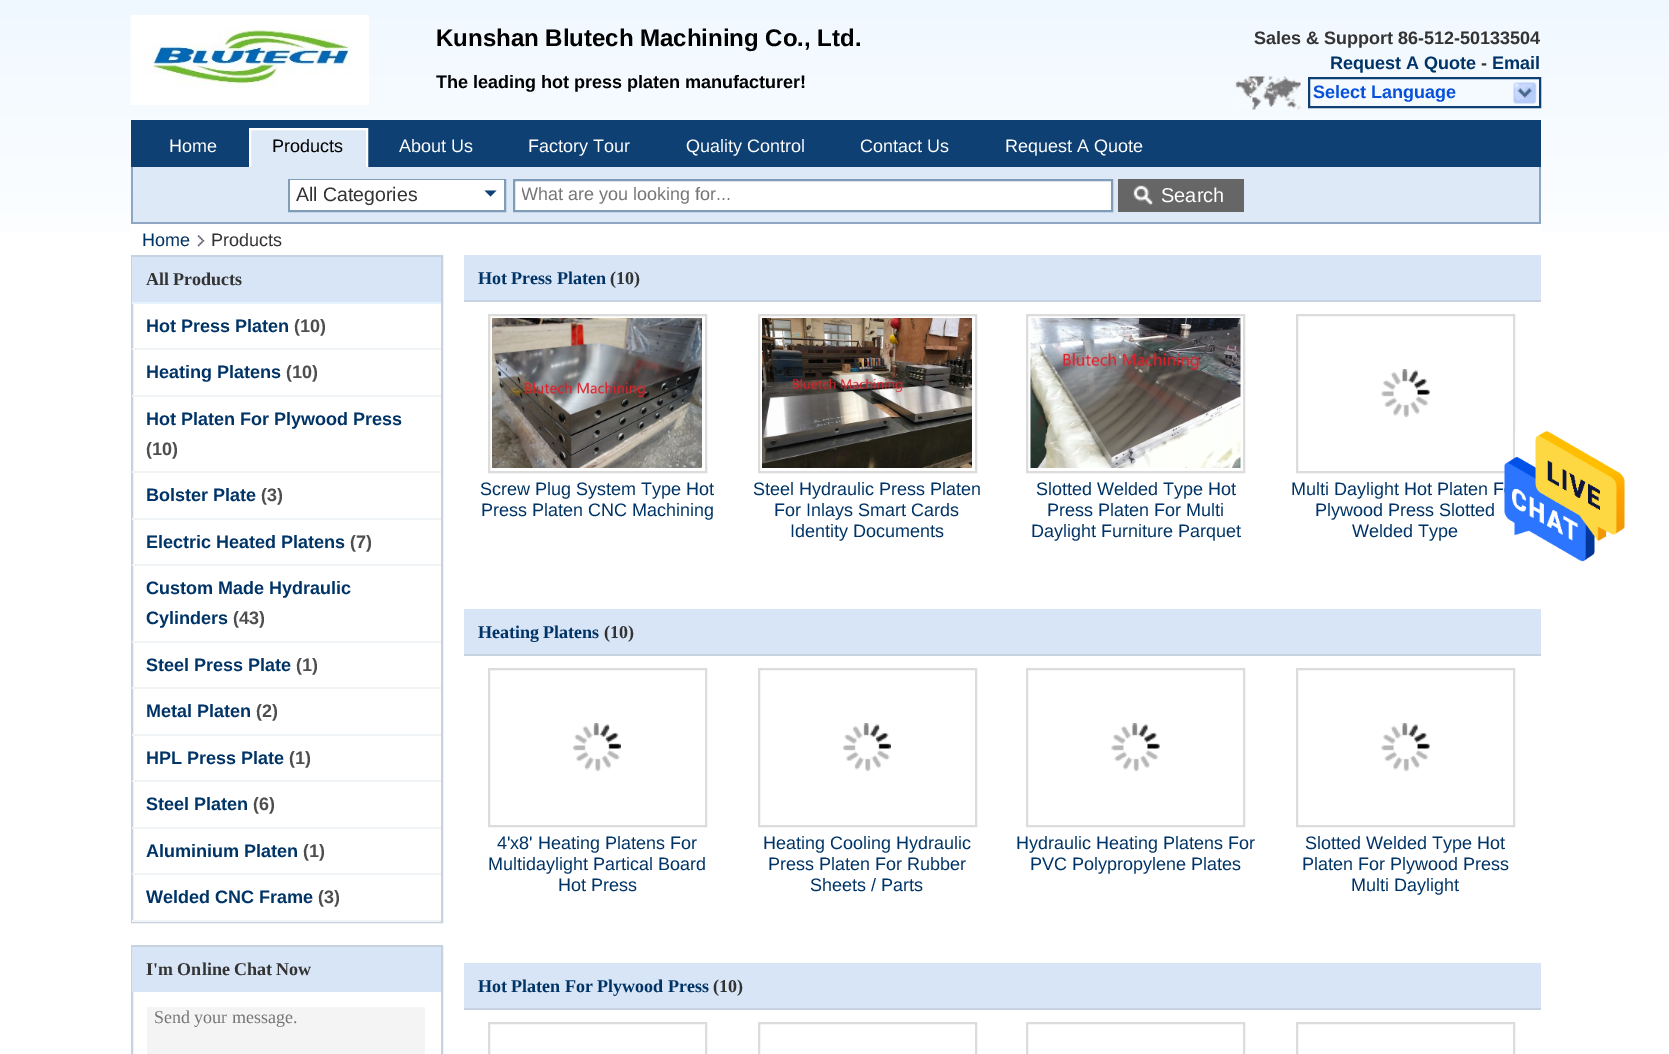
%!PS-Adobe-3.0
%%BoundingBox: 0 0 1669 1054
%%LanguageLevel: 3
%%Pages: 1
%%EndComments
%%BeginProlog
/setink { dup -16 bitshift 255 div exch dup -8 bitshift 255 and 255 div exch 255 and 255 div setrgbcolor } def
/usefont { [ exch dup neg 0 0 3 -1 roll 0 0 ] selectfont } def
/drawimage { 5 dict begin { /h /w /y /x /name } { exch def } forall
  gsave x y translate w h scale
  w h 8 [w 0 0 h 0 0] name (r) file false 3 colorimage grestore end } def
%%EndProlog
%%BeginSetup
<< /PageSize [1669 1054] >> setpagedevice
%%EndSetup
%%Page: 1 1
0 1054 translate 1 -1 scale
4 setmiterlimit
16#FFFFFF setink
0 0 1669 1054 rectfill
gsave 0 0 moveto 1669 0 lineto 1669 232 lineto 0 232 lineto closepath clip newpath
<< /ShadingType 2 /ColorSpace /DeviceRGB /Coords [835 0 835 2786] /Extend [true true] /Function << /FunctionType 3 /Domain [0 1] /Functions [<< /FunctionType 2 /Domain [0 1] /C0 [0.941 0.973 1] /C1 [1 1 1] /N 1 >> << /FunctionType 2 /Domain [0 1] /C0 [1 1 1] /C1 [1 1 1] /N 1 >>] /Bounds [0.1] /Encode [0 1 0 1] >> >> shfill grestore
(img1.raw) 130 15 239 90 drawimage
/LiberationSans-Bold 24 usefont
16#000000 setink
436 46 moveto (Kunshan Blutech Machining Co., Ltd.) show
/LiberationSans-Bold 18 usefont
436 88 moveto (The leading hot press platen manufacturer!) show
16#333333 setink
1254 44 moveto (Sales & Support 86-512-50133504) show
16#003366 setink
1330 69 moveto (Request A Quote) show
16#333333 setink
1481 69 moveto (-) show
16#003366 setink
1492 69 moveto (Email) show
(img2.raw) 1235 76 66 34 drawimage
16#0E4074 setink
2 setlinewidth
1309 78 231 29 rectstroke
16#0750D9 setink
1313 98 moveto (Select Language) show
(img3.raw) 1513 82 24 22 drawimage
[
    [1539 165 2 59 16#8EA6C1]
    [131 222 1410 2 16#8EA6C1]
    [131 165 2 59 16#8EA6C1]
    [131 120 1410 47 16#0E4074]
] { aload pop setink rectfill } forall
/LiberationSans-Regular 18 usefont
16#FFFFFF setink
169 152 moveto (Home) show
16#DDE9F6 setink
251 130 115 37 rectfill
133 167 1406 55 rectfill
gsave
131 120 1410 47 rectclip
16#FFFFFF setink
250 129 117 58 rectstroke
grestore
16#000000 setink
272 152 moveto (Products) show
16#FFFFFF setink
[
    [(About Us) 399 152]
    [(Factory Tour) 528 152]
    [(Quality Control) 686 152]
    [(Contact Us) 860 152]
    [(Request A Quote) 1005 152]
] { aload pop moveto show } forall
16#7F9DB9 setink
289 180 216 31 rectstroke
16#FFFFFF setink
290 180 214 30 rectfill
/LiberationSans-Regular 19.5 usefont
16#333333 setink
296 201 moveto (All Categories) show
16#0E4074 setink
484.5 190.5 moveto 496.5 190.5 lineto 490.5 196.5 lineto closepath fill
16#FFFFFF setink
514 180 moveto 1112 180 lineto 1112 211 lineto 514 211 lineto closepath gsave fill grestore
16#7F9DB9 setink
stroke
gsave
522 185 582 21 rectclip
/LiberationSans-Regular 18 usefont
16#757575 setink
521 200 moveto (What are you looking for...) show
grestore
16#666666 setink
1118 179 126 33 rectfill
(img4.raw) 1133 185 20 20 drawimage
/LiberationSans-Regular 20 usefont
16#FFFFFF setink
1161 202 moveto (Search) show
131 225 1410 7 rectfill
/LiberationSans-Regular 18 usefont
16#003366 setink
142 246 moveto (Home) show
(img5.raw) 197 235 8 12 drawimage
16#333333 setink
211 246 moveto (Products) show
16#C6D2E0 setink
132 256 310 666 rectstroke
16#D8E5F6 setink
132 257 309 45 rectfill
16#E7F3FF setink
132 302 309 2 rectfill
/LiberationSerif-Bold 18 usefont
16#333333 setink
146 285 moveto (All Products) show
16#F0F4F6 setink
132 348 309 2 rectfill
/LiberationSans-Bold 18 usefont
16#003366 setink
146 332 moveto (Hot Press Platen) show
16#4E4E4E setink
294 332 moveto (\(10\)) show
16#F0F4F6 setink
132 395 309 2 rectfill
16#003366 setink
146 378 moveto (Heating Platens) show
16#4E4E4E setink
286 378 moveto (\(10\)) show
16#F0F4F6 setink
132 471 309 2 rectfill
16#003366 setink
146 425 moveto (Hot Platen For Plywood Press) show
16#4E4E4E setink
146 455 moveto (\(10\)) show
16#F0F4F6 setink
132 518 309 2 rectfill
16#003366 setink
146 501 moveto (Bolster Plate) show
16#4E4E4E setink
261 501 moveto (\(3\)) show
16#F0F4F6 setink
132 564 309 2 rectfill
16#003366 setink
146 548 moveto (Electric Heated Platens) show
16#4E4E4E setink
350 548 moveto (\(7\)) show
16#F0F4F6 setink
132 641 309 2 rectfill
16#003366 setink
146 594 moveto (Custom Made Hydraulic) show
146 624 moveto (Cylinders) show
16#4E4E4E setink
233 624 moveto (\(43\)) show
16#F0F4F6 setink
132 687 309 2 rectfill
16#003366 setink
146 671 moveto (Steel Press Plate) show
16#4E4E4E setink
296 671 moveto (\(1\)) show
16#F0F4F6 setink
132 734 309 2 rectfill
16#003366 setink
146 717 moveto (Metal Platen) show
16#4E4E4E setink
256 717 moveto (\(2\)) show
16#F0F4F6 setink
132 780 309 2 rectfill
16#003366 setink
146 764 moveto (HPL Press Plate) show
16#4E4E4E setink
289 764 moveto (\(1\)) show
16#F0F4F6 setink
132 827 309 2 rectfill
16#003366 setink
146 810 moveto (Steel Platen) show
16#4E4E4E setink
253 810 moveto (\(6\)) show
16#F0F4F6 setink
132 873 309 2 rectfill
16#003366 setink
146 857 moveto (Aluminium Platen) show
16#4E4E4E setink
303 857 moveto (\(1\)) show
16#F0F4F6 setink
132 920 309 2 rectfill
16#003366 setink
146 903 moveto (Welded CNC Frame) show
16#4E4E4E setink
318 903 moveto (\(3\)) show
16#C6D2E0 setink
132 946 310 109 rectstroke
16#D8E5F6 setink
132 947 309 45 rectfill
/LiberationSerif-Bold 18 usefont
16#333333 setink
146 975 moveto (I'm Online Chat Now) show
16#F4F4F4 setink
147 1007 278 47 rectfill
/LiberationSerif-Regular 18 usefont
16#757575 setink
154 1023 moveto (Send your message.) show
16#D8E5F6 setink
464 255 1077 45 rectfill
16#C6D2E0 setink
464 300 1077 2 rectfill
/LiberationSerif-Bold 18 usefont
16#003366 setink
478 284 moveto (Hot Press Platen) show
16#333333 setink
610 284 moveto (\(10\)) show
16#DCDCDC setink
489 315 217 157 rectstroke
(img6.raw) 492 318 210 150 drawimage
/LiberationSans-Regular 18 usefont
16#003366 setink
480 495 moveto (Screw Plug System Type Hot) show
481 516 moveto (Press Platen CNC Machining) show
16#DCDCDC setink
759 315 217 157 rectstroke
(img7.raw) 762 318 210 150 drawimage
16#003366 setink
[
    [(Steel Hydraulic Press Platen) 753 495]
    [(For Inlays Smart Cards) 774 516]
    [(Identity Documents) 790 537]
] { aload pop moveto show } forall
16#DCDCDC setink
1027 315 217 157 rectstroke
(img8.raw) 1030 318 211 150 drawimage
16#003366 setink
[
    [(Slotted Welded Type Hot) 1036 495]
    [(Press Platen For Multi) 1047 516]
    [(Daylight Furniture Parquet) 1031 537]
] { aload pop moveto show } forall
16#DCDCDC setink
1297 315 217 157 rectstroke
(img9.raw) 1381 369 49 48 drawimage
16#003366 setink
[
    [(Multi Daylight Hot Platen F) 1291 495]
    [(Plywood Press Slotted) 1315 516]
    [(Welded Type) 1352 537]
] { aload pop moveto show } forall
16#D8E5F6 setink
464 609 1077 45 rectfill
16#C6D2E0 setink
464 654 1077 2 rectfill
/LiberationSerif-Bold 18 usefont
16#003366 setink
478 638 moveto (Heating Platens) show
16#333333 setink
604 638 moveto (\(10\)) show
16#DCDCDC setink
489 669 217 157 rectstroke
(img10.raw) 573 723 48 48 drawimage
/LiberationSans-Regular 18 usefont
16#003366 setink
[
    [(4'x8' Heating Platens For) 497 849]
    [(Multidaylight Partical Board) 488 870]
    [(Hot Press) 558 891]
] { aload pop moveto show } forall
16#DCDCDC setink
759 669 217 157 rectstroke
(img11.raw) 843 723 48 48 drawimage
16#003366 setink
[
    [(Heating Cooling Hydraulic) 763 849]
    [(Press Platen For Rubber) 768 870]
    [(Sheets / Parts) 810 891]
] { aload pop moveto show } forall
16#DCDCDC setink
1027 669 217 157 rectstroke
(img12.raw) 1111 723 49 48 drawimage
16#003366 setink
1016 849 moveto (Hydraulic Heating Platens For) show
1030 870 moveto (PVC Polypropylene Plates) show
16#DCDCDC setink
1297 669 217 157 rectstroke
(img9.raw) 1381 723 49 48 drawimage
16#003366 setink
[
    [(Slotted Welded Type Hot) 1305 849]
    [(Platen For Plywood Press) 1302 870]
    [(Multi Daylight) 1351 891]
] { aload pop moveto show } forall
16#D8E5F6 setink
464 963 1077 45 rectfill
16#C6D2E0 setink
464 1008 1077 2 rectfill
/LiberationSerif-Bold 18 usefont
16#003366 setink
478 992 moveto (Hot Platen For Plywood Press) show
16#333333 setink
713 992 moveto (\(10\)) show
16#DCDCDC setink
489 1023 217 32 rectstroke
759 1023 217 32 rectstroke
1027 1023 217 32 rectstroke
1297 1023 217 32 rectstroke
(img13.raw) 1504 431 121 131 drawimage
showpage
%%EOF
